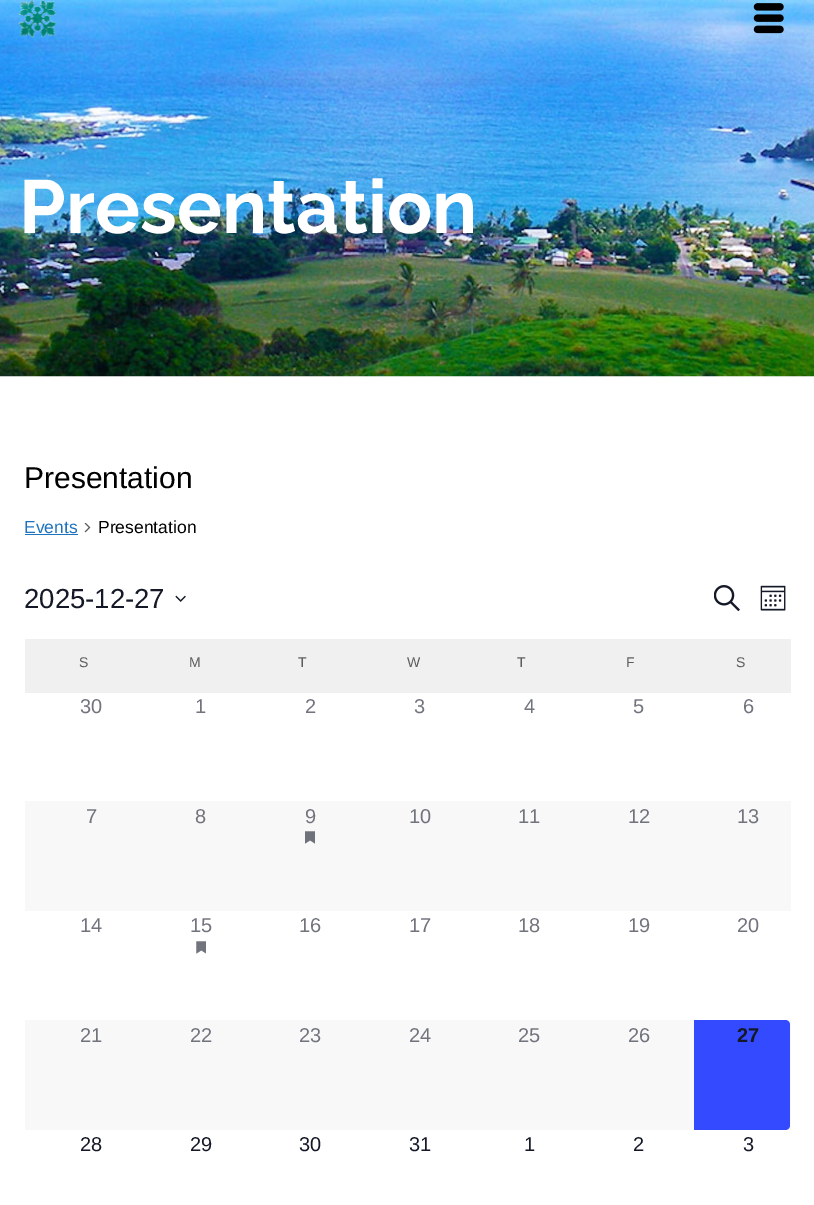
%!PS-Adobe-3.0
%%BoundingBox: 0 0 814 1205
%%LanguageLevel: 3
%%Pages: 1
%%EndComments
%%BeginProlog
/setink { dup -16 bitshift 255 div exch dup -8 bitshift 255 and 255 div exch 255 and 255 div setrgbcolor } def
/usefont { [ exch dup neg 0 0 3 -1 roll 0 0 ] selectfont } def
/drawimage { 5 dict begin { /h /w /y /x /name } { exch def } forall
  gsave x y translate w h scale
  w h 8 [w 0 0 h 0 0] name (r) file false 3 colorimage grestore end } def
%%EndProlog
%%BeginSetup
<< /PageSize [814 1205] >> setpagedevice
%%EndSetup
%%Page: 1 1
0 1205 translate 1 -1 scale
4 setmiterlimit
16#FFFFFF setink
0 0 814 1205 rectfill
(img3.raw) 0 0 814 377 drawimage
(img1.raw) 18 0 39 38 drawimage
(img2.raw) 753 3 31 31 drawimage
/Raleway-Bold 75 usefont
19 233 moveto (Presentation) show
/LiberationSans-Regular 30 usefont
16#000000 setink
24 488 moveto (Presentation) show
/LiberationSans-Regular 17.5 usefont
16#1E73BE setink
24 533 moveto (Events) show
25 534 53 1 rectfill
(img4.raw) 84 523 7 10 drawimage
16#000000 setink
98 533 moveto (Presentation) show
/LiberationSans-Regular 27.5 usefont
16#141827 setink
24 608 moveto (2025-12-27) show
(img5.raw) 175 595 11 7 drawimage
(img6.raw) 714 585 26 26 drawimage
(img7.raw) 760 585 26 26 drawimage
16#F0F0F0 setink
25 639 766 54 rectfill
/LiberationSans-Regular 14 usefont
16#5D5D5D setink
[
    [(S) 79 667]
    [(M) 189 667]
    [(T) 298 667]
    [(W) 407 667]
    [(T) 517 667]
    [(F) 626 667]
    [(S) 736 667]
] { aload pop moveto show } forall
/LiberationSans-Regular 20 usefont
16#72747D setink
[
    [(30) 80 713]
    [(1) 195 713]
    [(2) 305 713]
    [(3) 414 713]
    [(4) 524 713]
    [(5) 633 713]
    [(6) 743 713]
] { aload pop moveto show } forall
16#F8F8F8 setink
25 801 766 110 rectfill
16#72747D setink
[
    [(7) 86 823]
    [(8) 195 823]
    [(9) 305 823]
] { aload pop moveto show } forall
(img8.raw) 305 831 10 13 drawimage
[
    [(10) 409 823]
    [(11) 518 823]
    [(12) 628 823]
    [(13) 737 823]
    [(14) 80 932]
    [(15) 190 932]
] { aload pop moveto show } forall
(img9.raw) 196 941 10 13 drawimage
[
    [(16) 299 932]
    [(17) 409 932]
    [(18) 518 932]
    [(19) 628 932]
    [(20) 737 932]
] { aload pop moveto show } forall
16#F8F8F8 setink
25 1020 766 110 rectfill
16#72747D setink
[
    [(21) 80 1042]
    [(22) 190 1042]
    [(23) 299 1042]
    [(24) 409 1042]
    [(25) 518 1042]
    [(26) 628 1042]
] { aload pop moveto show } forall
16#334AFF setink
694 1020 moveto 785 1020 lineto 788 1020 790 1022 790 1025 curveto 790 1125 lineto 790 1128 788 1130 785 1130 curveto 694 1130 lineto closepath fill
/LiberationSans-Bold 20 usefont
16#141827 setink
737 1042 moveto (27) show
/LiberationSans-Regular 20 usefont
[
    [(28) 80 1151]
    [(29) 190 1151]
    [(30) 299 1151]
    [(31) 409 1151]
    [(1) 524 1151]
    [(2) 633 1151]
    [(3) 743 1151]
] { aload pop moveto show } forall
showpage
%%EOF
